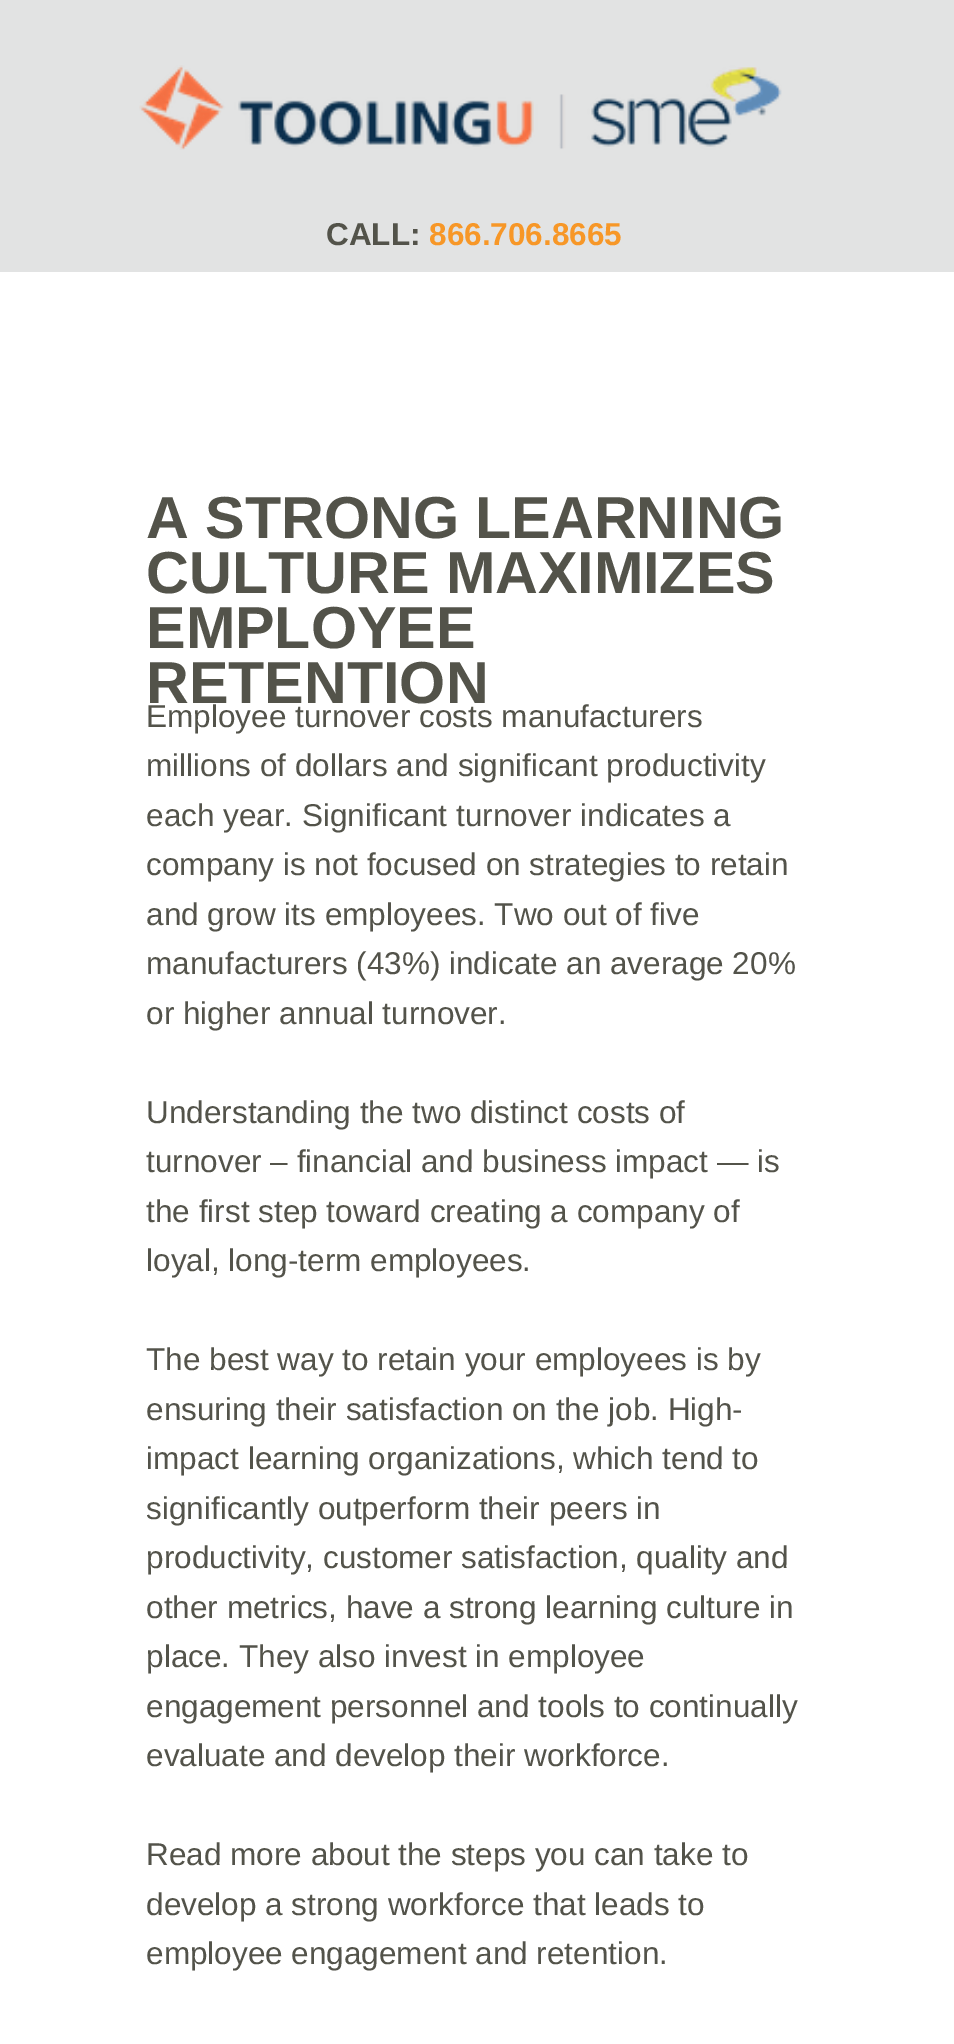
%!PS-Adobe-3.0
%%BoundingBox: 0 0 954 2044
%%LanguageLevel: 3
%%Pages: 1
%%EndComments
%%BeginProlog
/setink { dup -16 bitshift 255 div exch dup -8 bitshift 255 and 255 div exch 255 and 255 div setrgbcolor } def
/usefont { [ exch dup neg 0 0 3 -1 roll 0 0 ] selectfont } def
/drawimage { 5 dict begin { /h /w /y /x /name } { exch def } forall
  gsave x y translate w h scale
  w h 8 [w 0 0 h 0 0] name (r) file false 3 colorimage grestore end } def
%%EndProlog
%%BeginSetup
<< /PageSize [954 2044] >> setpagedevice
%%EndSetup
%%Page: 1 1
0 2044 translate 1 -1 scale
4 setmiterlimit
16#FFFFFF setink
0 0 954 2044 rectfill
16#E2E3E3 setink
0 0 954 272 rectfill
(img1.raw) 139 65 643 85 drawimage
/LiberationSans-Bold 31.5 usefont
16#53534A setink
326 245 moveto (CALL:) show
16#F79727 setink
429 245 moveto (866.706.8665) show
/LiberationSans-Bold 59.25 usefont
16#53534A setink
[
    [(A STRONG LEARNING) 146 538]
    [(CULTURE MAXIMIZES) 146 593]
    [(EMPLOYEE) 146 648]
    [(RETENTION) 146 703]
] { aload pop moveto show } forall
/LiberationSans-Regular 31.5 usefont
[
    [(Employee turnover costs manufacturers) 146 727]
    [(millions of dollars and significant productivity) 146 776]
    [(each year. Significant turnover indicates a) 146 826]
    [(company is not focused on strategies to retain) 146 875]
    [(and grow its employees. Two out of five) 146 925]
    [(manufacturers \(43%\) indicate an average 20%) 146 974]
    [(or higher annual turnover.) 146 1024]
    [(Understanding the two distinct costs of) 146 1123]
    [(turnover – financial and business impact — is) 146 1172]
    [(the first step toward creating a company of) 146 1222]
    [(loyal, long-term employees.) 146 1271]
    [(The best way to retain your employees is by) 146 1370]
    [(ensuring their satisfaction on the job. High-) 146 1420]
    [(impact learning organizations, which tend to) 146 1469]
    [(significantly outperform their peers in) 146 1519]
    [(productivity, customer satisfaction, quality and) 146 1568]
    [(other metrics, have a strong learning culture in) 146 1618]
    [(place. They also invest in employee) 146 1667]
    [(engagement personnel and tools to continually) 146 1717]
    [(evaluate and develop their workforce.) 146 1766]
    [(Read more about the steps you can take to) 146 1865]
    [(develop a strong workforce that leads to) 146 1915]
    [(employee engagement and retention.) 146 1964]
] { aload pop moveto show } forall
showpage
%%EOF
